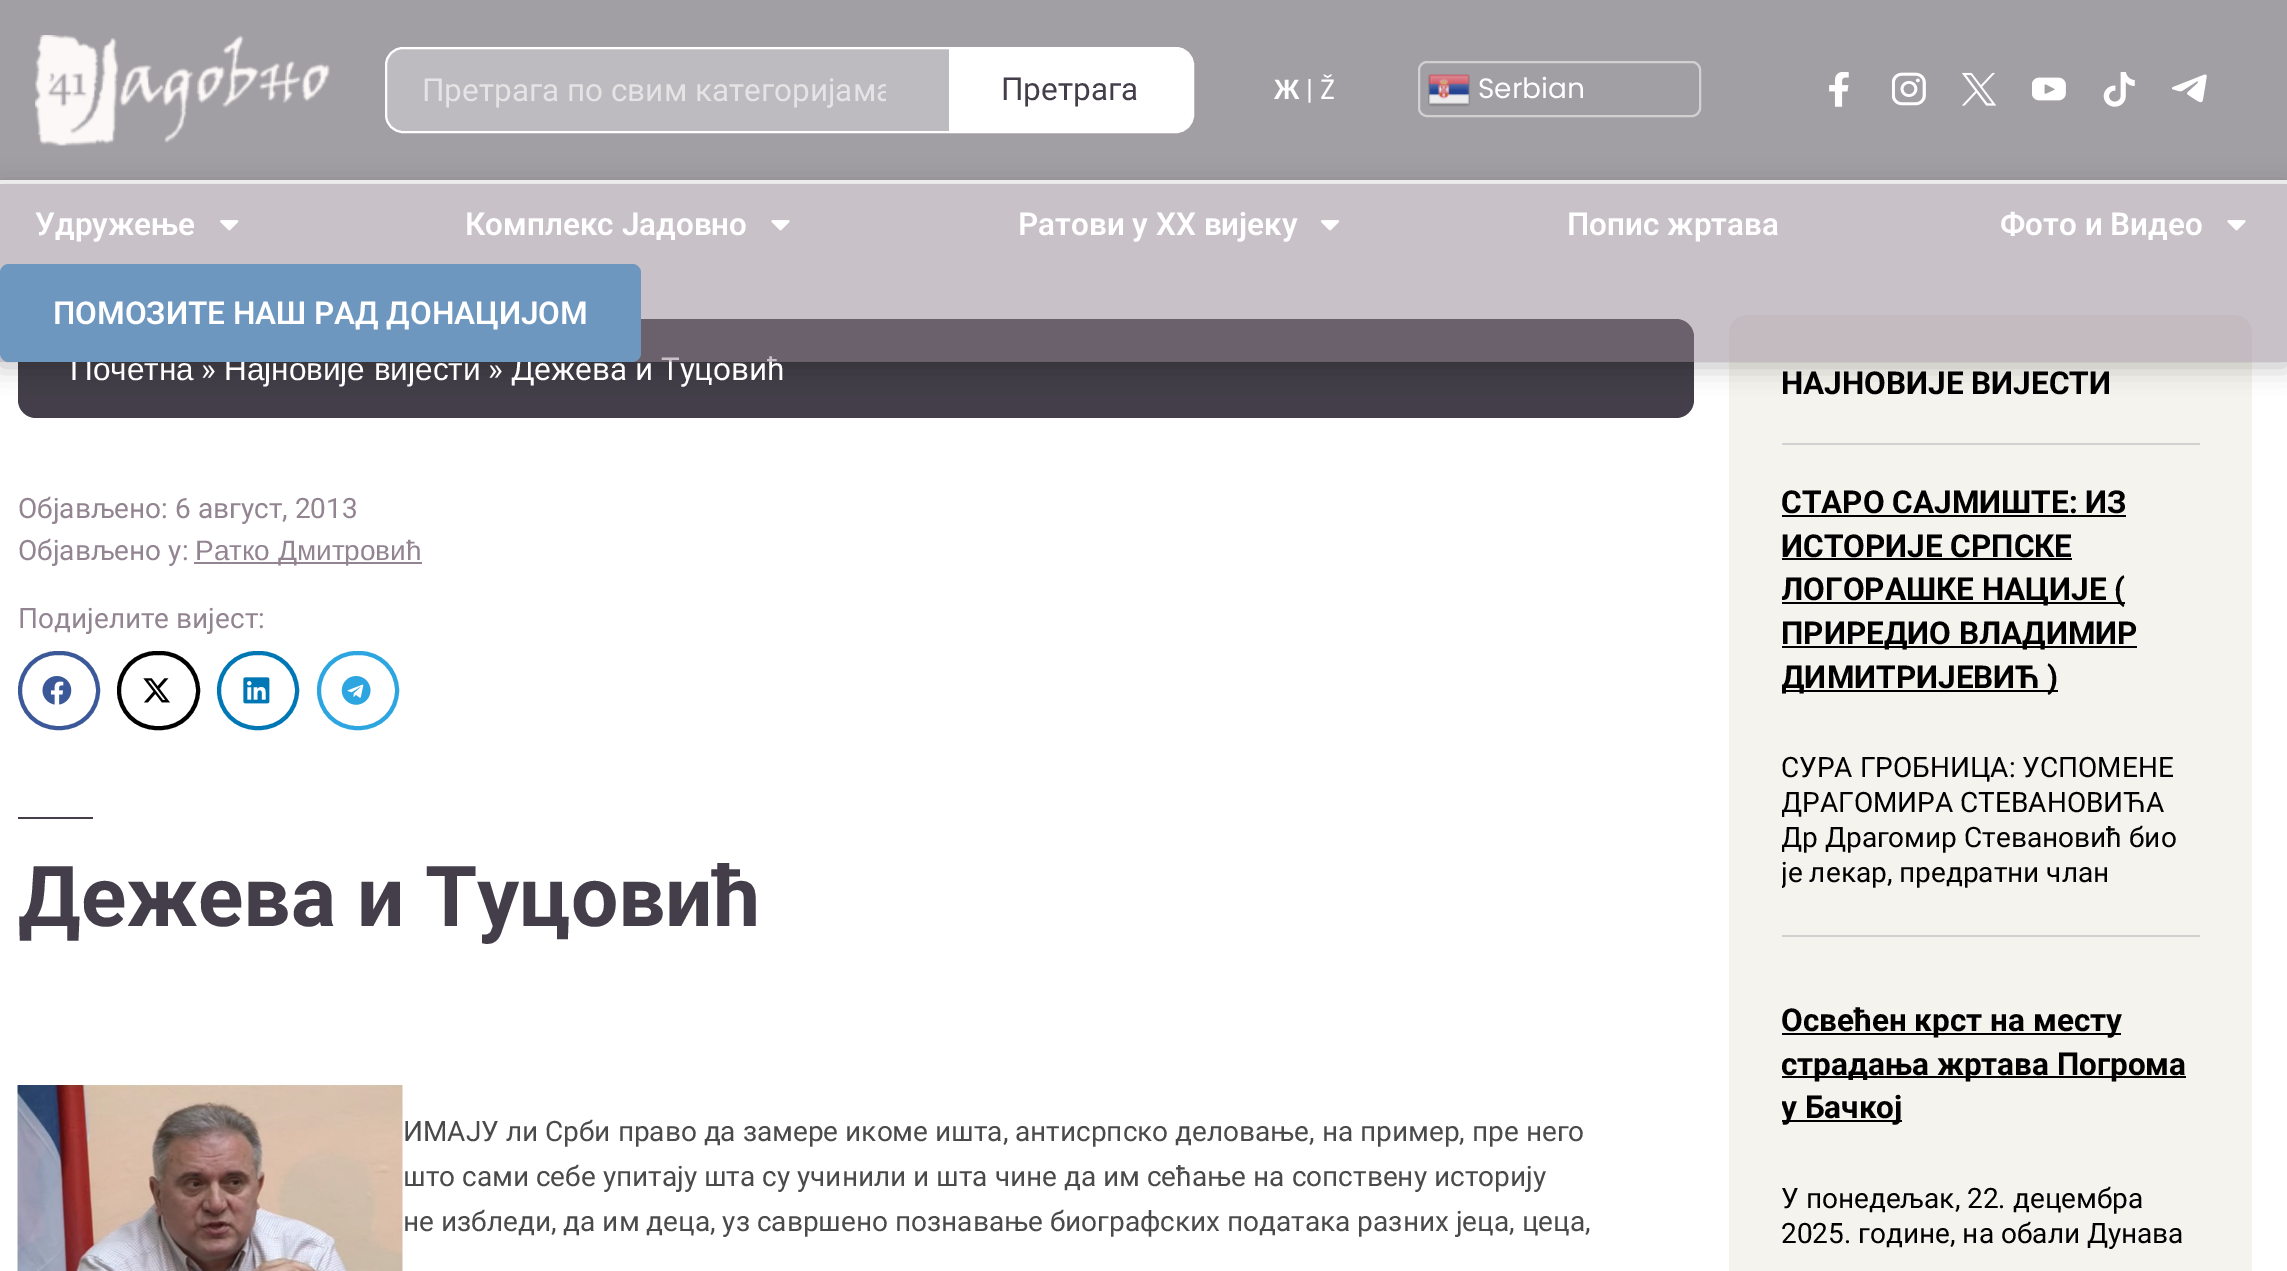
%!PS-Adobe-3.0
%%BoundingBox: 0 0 2287 1271
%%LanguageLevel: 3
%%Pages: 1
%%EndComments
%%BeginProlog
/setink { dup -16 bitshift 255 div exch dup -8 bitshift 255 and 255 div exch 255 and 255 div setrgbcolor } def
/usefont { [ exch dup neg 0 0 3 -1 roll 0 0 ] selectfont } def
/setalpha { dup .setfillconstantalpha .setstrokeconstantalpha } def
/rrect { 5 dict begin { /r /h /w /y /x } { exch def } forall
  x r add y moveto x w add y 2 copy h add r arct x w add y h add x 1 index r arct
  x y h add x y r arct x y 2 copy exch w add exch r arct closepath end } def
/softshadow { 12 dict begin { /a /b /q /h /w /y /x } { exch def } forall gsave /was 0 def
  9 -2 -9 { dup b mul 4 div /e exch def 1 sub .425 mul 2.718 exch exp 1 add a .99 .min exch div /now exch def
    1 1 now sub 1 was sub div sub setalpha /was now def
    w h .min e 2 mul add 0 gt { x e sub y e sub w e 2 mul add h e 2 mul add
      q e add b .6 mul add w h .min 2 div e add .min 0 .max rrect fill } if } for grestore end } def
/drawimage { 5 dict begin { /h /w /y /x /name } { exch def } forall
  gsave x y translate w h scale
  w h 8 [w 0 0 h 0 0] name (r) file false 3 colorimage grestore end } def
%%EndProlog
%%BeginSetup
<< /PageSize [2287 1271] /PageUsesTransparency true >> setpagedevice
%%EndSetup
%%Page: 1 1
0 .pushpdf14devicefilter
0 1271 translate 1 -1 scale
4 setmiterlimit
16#FFFFFF setink
0 0 2287 1271 rectfill
16#433E49 setink
18 319 1676 99 18 rrect fill
16#F5F3EE setink
1729 315 523 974 18 rrect fill
gsave
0 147 moveto 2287 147 lineto 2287 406 lineto 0 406 lineto closepath 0 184 moveto 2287 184 lineto 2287 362 lineto 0 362 lineto closepath eoclip newpath
16#000000 setink
0 187 2287 179 0 13 0.25 softshadow
grestore
0.5 setalpha
16#433E49 setink
0 0 2287 180 rectfill
1 setalpha
(img1.raw) 35 35 295 111 drawimage
16#BDBBBF setink
386 48 807 84 17 rrect gsave fill grestore
16#FFFFFF setink
2 setlinewidth
stroke
gsave
422 72 464 37 rectclip
/Roboto-Regular 31.5 usefont
16#E5E4E5 setink
422 101 moveto (Претрага по свим категоријама) show
grestore
949 49 moveto 1176 49 lineto 1185 49 1192 56 1192 65 curveto 1192 115 lineto 1192 124 1185 131 1176 131 curveto 949 131 lineto closepath fill
/Roboto-Regular 31.5 usefont
16#433E49 setink
1001 100 moveto (Претрага) show
/LiberationSans-Bold 28 usefont
16#FFFFFF setink
1274 99 moveto (Ж) show
/Roboto-Regular 28 usefont
1306 99 moveto (|) show
/Poppins-Regular 28 usefont
1320 99 moveto (Ž) show
16#D1D1D1 setink
1419 62 281 54 8 rrect stroke
(img2.raw) 1428 74 42 33 drawimage
16#FFFFFF setink
1478 98 moveto (Serbian) show
(img3.raw) 1829 72 20 35 drawimage
(img4.raw) 1892 72 34 34 drawimage
(img5.raw) 1962 72 35 34 drawimage
(img6.raw) 2032 77 34 24 drawimage
(img7.raw) 2103 72 32 35 drawimage
(img8.raw) 2172 74 35 29 drawimage
/LiberationSans-Regular 31.5 usefont
70 380 moveto (Почетна) show
224 380 moveto (Најновије вијести) show
/Roboto-Regular 31.5 usefont
488 380 moveto (» Дежева и Туцовић) show
0.5 setalpha
16#928490 setink
0 184 2287 178 rectfill
/Roboto-SemiBold 31.5 usefont
1 setalpha
16#FFFFFF setink
35 235 moveto (Удружење) show
(img9.raw) 220 220 19 11 drawimage
465 235 moveto (Комплекс Јадовно) show
(img10.raw) 771 220 19 11 drawimage
1018 235 moveto (Ратови у XX вијеку) show
(img11.raw) 1320 220 19 11 drawimage
1567 235 moveto (Попис жртава) show
2000 235 moveto (Фото и Видео) show
(img10.raw) 2227 220 19 11 drawimage
16#6E97BF setink
0 264 641 98 9 rrect fill
16#FFFFFF setink
53 324 moveto (ПОМОЗИТЕ НАШ РАД ДОНАЦИЈОМ) show
/Roboto-Regular 31.5 usefont
201 380 moveto (») show
/Roboto-Regular 28 usefont
16#928490 setink
18 518 moveto (Објављено: 6 август, 2013) show
18 560 moveto (Објављено у:) show
194 562 228 2 rectfill
/LiberationSans-Regular 28 usefont
195 560 moveto (Ратко Дмитровић) show
/Roboto-Regular 28 usefont
18 628 moveto (Подијелите вијест:) show
16#3B5998 setink
4 setlinewidth
20 653 78 75 37.5 rrect stroke
(img12.raw) 42 676 30 29 drawimage
16#000000 setink
119 653 79 75 37.5 rrect stroke
(img13.raw) 143 678 27 25 drawimage
16#0077B5 setink
219 653 78 75 37.5 rrect stroke
(img14.raw) 243 677 27 27 drawimage
16#2CA5E0 setink
319 653 78 75 37.5 rrect stroke
(img15.raw) 341 676 30 29 drawimage
16#433E49 setink
18 817 75 2 rectfill
/Roboto-Bold 84 usefont
18 926 moveto (Дежева и Туцовић) show
(img16.raw) 17 1085 386 186 drawimage
/Roboto-Regular 28 usefont
16#4A4A4A setink
[
    [(ИМАЈУ ли Срби право да замере икоме ишта, антисрпско деловање, на пример, пре него) 403 1141]
    [(што сами себе упитаjу шта су учинили и шта чине да им сећање на сопствену историjу) 403 1186]
    [(не избледи, да им деца, уз савршено познавање биографских података разних jеца, цеца,) 403 1231]
] { aload pop moveto show } forall
16#D1D1D1 setink
1782 443 418 2 rectfill
/Roboto-Bold 31.5 usefont
16#000000 setink
1781 394 moveto (НАЈНОВИЈЕ ВИЈЕСТИ) show
16#D1D1D1 setink
1782 935 418 2 rectfill
16#000000 setink
1781 513 moveto (СТАРО САЈМИШТЕ: ИЗ) show
1782 515 344 2 rectfill
1781 557 moveto (ИСТОРИЈЕ СРПСКЕ) show
1782 558 290 2 rectfill
1782 602 343 2 rectfill
gsave
1782 480 418 455 rectclip
1781 600 moveto (ЛОГОРАШКЕ НАЦИЈЕ \() show
grestore
1782 646 355 2 rectfill
1781 644 moveto (ПРИРЕДИО ВЛАДИМИР) show
1782 690 276 2 rectfill
gsave
1782 480 418 455 rectclip
1781 688 moveto (ДИМИТРИЈЕВИЋ \)) show
grestore
/Roboto-Regular 28 usefont
1781 777 moveto (СУРА ГРОБНИЦА: УСПОМЕНЕ) show
gsave
1782 480 418 455 rectclip
[
    [(ДРАГОМИРА СТЕВАНОВИЋА) 1781 812]
    [(Др Драгомир Стевановић био) 1781 847]
    [(је лекар, предратни члан) 1781 882]
] { aload pop moveto show } forall
grestore
1782 1033 339 2 rectfill
/Roboto-Bold 31.5 usefont
1781 1031 moveto (Освећен крст на месту) show
1782 1076 404 2 rectfill
gsave
1782 998 418 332 rectclip
1781 1075 moveto (страдања жртава Погрома) show
grestore
1782 1120 120 2 rectfill
gsave
1782 998 418 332 rectclip
1781 1118 moveto (у Бачкој) show
grestore
/Roboto-Regular 28 usefont
1781 1208 moveto (У понедељак, 22. децембра) show
1781 1243 moveto (2025. године, на обали Дунава) show
.poppdf14devicefilter showpage
%%EOF
